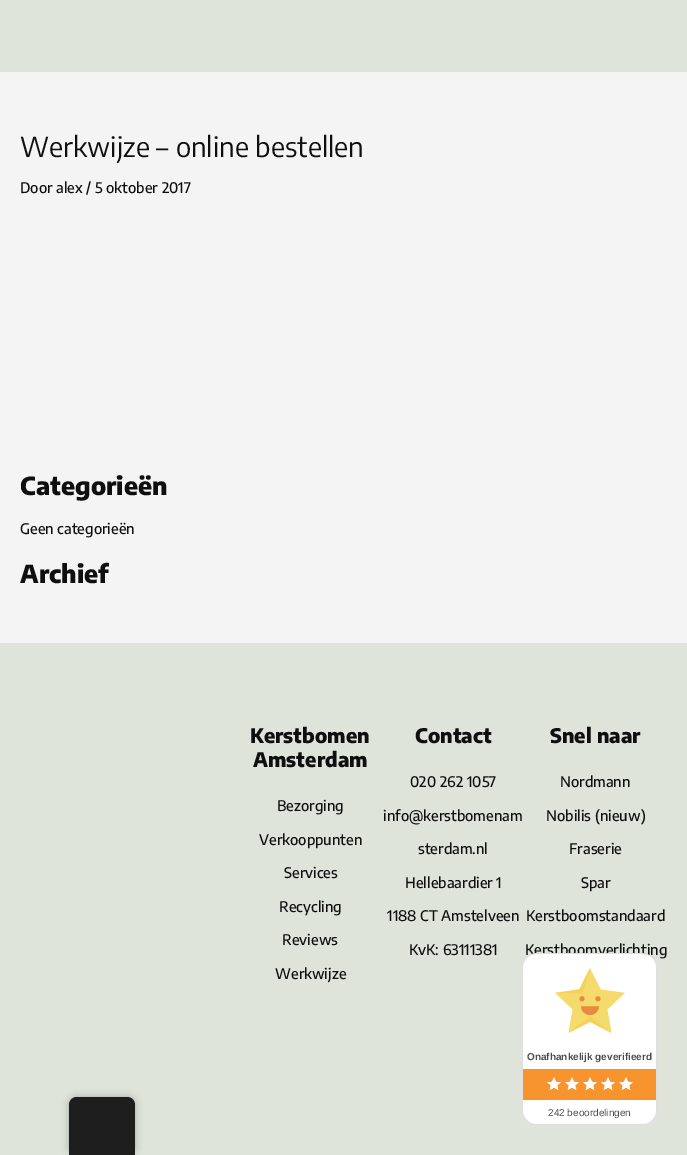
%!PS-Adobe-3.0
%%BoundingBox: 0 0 687 1155
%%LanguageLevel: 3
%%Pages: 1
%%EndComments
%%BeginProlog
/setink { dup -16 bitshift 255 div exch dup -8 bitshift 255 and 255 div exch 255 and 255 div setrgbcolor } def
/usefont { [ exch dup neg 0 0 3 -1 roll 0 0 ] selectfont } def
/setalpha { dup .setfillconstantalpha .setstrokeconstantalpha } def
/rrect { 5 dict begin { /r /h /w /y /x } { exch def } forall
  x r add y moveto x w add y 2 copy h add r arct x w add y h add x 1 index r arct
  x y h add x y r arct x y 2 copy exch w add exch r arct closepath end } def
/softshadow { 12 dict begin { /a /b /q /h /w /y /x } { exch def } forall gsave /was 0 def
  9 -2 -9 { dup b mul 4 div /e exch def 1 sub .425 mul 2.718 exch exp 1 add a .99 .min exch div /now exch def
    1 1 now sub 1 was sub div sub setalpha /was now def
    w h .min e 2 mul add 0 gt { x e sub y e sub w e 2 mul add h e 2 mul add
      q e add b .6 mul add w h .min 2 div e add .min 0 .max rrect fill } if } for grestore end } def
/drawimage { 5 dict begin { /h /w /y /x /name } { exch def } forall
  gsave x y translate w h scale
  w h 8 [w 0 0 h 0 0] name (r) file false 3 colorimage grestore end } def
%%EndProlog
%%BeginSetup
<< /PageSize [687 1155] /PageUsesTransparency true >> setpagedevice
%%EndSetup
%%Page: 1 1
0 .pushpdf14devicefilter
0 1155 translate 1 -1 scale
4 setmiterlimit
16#F4F4F4 setink
0 0 687 1155 rectfill
16#DEE4DA setink
0 0 687 72 rectfill
/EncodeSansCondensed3-Thin 27.4 usefont
16#0F0F0F setink
20 157 moveto (Werkwijze – online bestellen) show
/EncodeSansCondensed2-Thin 14.6 usefont
20 193 moveto (Door alex / 5 oktober 2017) show
/EncodeSansCondensed-Thin 24.75 usefont
20 495 moveto (Categorieën) show
/EncodeSansCondensed2-Thin 14.6 usefont
20 534 moveto (Geen categorieën) show
/EncodeSansCondensed-Thin 24.75 usefont
20 583 moveto (Archief) show
16#DEE4DA setink
0 643 687 512 rectfill
/EncodeSansCondensed-Thin 20 usefont
16#0F0F0F setink
250 743 moveto (Kerstbomen) show
253 767 moveto (Amsterdam) show
/EncodeSansCondensed2-Thin 14.6 usefont
[
    [(Bezorging) 277 811]
    [(Verkooppunten) 259 845]
    [(Services) 284 878]
    [(Recycling) 279 912]
    [(Reviews) 282 945]
    [(Werkwijze) 275 979]
] { aload pop moveto show } forall
/EncodeSansCondensed-Thin 20 usefont
415 743 moveto (Contact) show
/EncodeSansCondensed2-Thin 14.6 usefont
[
    [(020 262 1057) 410 787]
    [(info@kerstbomenam) 383 821]
    [(sterdam.nl) 418 854]
    [(Hellebaardier 1) 405 888]
    [(1188 CT Amstelveen) 387 921]
    [(KvK: 63111381) 409 955]
] { aload pop moveto show } forall
/EncodeSansCondensed-Thin 20 usefont
550 743 moveto (Snel naar) show
/EncodeSansCondensed2-Thin 14.6 usefont
[
    [(Nordmann) 560 787]
    [(Nobilis \(nieuw\)) 546 821]
    [(Fraserie) 569 854]
    [(Spar) 581 888]
    [(Kerstboomstandaard) 526 921]
    [(Kerstboomverlichting) 525 955]
] { aload pop moveto show } forall
16#000000 setink
69 1097 66 58 8 4 0.25 softshadow
16#1E1E1E setink
77 1097 moveto 127 1097 lineto 131.5 1097 135 1100.5 135 1105 curveto 135 1155 lineto 69 1155 lineto 69 1105 lineto 69 1100.5 72.5 1097 77 1097 curveto closepath fill
16#DFDFDF setink
522.5 953.5 134 171 14.5 rrect stroke
16#FFFFFF setink
537 954 moveto 642 954 lineto 649.5 954 656 960.5 656 968 curveto 656 1069 lineto 523 1069 lineto 523 968 lineto 523 960.5 529.5 954 537 954 curveto closepath fill
16#F8942D setink
523 1069 133 31 rectfill
16#FFFFFF setink
523 1100 moveto 656 1100 lineto 656 1110 lineto 656 1117.5 649.5 1124 642 1124 curveto 537 1124 lineto 529.5 1124 523 1117.5 523 1110 curveto closepath fill
(img1.raw) 555 968 70 65 drawimage
/LiberationSans-Bold 10 usefont
16#4C4C4C setink
527 1060 moveto (Onafhankelijk geverifieerd) show
(img2.raw) 547 1077 14 13 drawimage
(img3.raw) 547 1077 14 13 drawimage
(img2.raw) 565 1077 14 13 drawimage
(img3.raw) 565 1077 14 13 drawimage
(img2.raw) 583 1077 14 13 drawimage
(img3.raw) 583 1077 14 13 drawimage
(img2.raw) 601 1077 14 13 drawimage
(img3.raw) 601 1077 14 13 drawimage
(img2.raw) 619 1077 14 13 drawimage
(img4.raw) 619 1077 12 13 drawimage
/LiberationSans-Regular 10 usefont
548 1116 moveto (242 beoordelingen) show
.poppdf14devicefilter showpage
%%EOF
